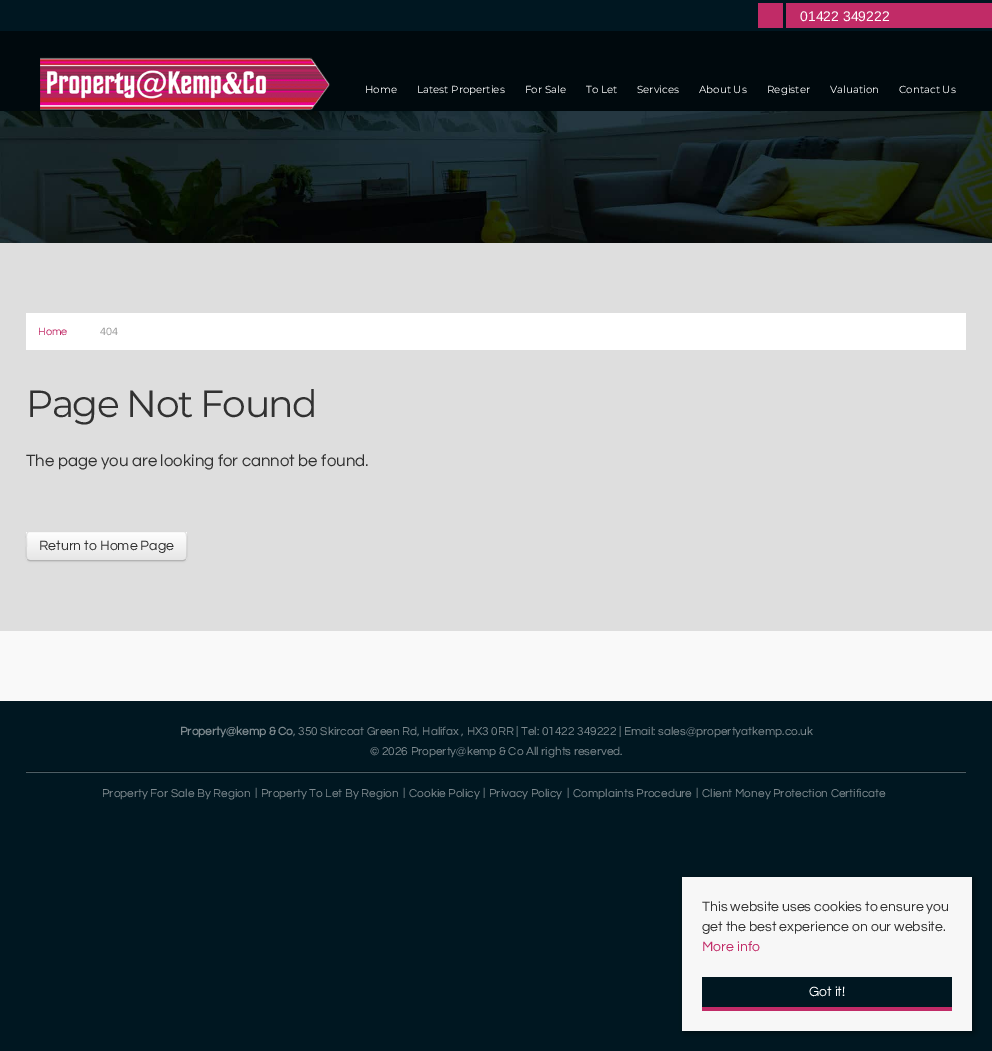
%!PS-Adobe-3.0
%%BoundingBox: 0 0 992 1051
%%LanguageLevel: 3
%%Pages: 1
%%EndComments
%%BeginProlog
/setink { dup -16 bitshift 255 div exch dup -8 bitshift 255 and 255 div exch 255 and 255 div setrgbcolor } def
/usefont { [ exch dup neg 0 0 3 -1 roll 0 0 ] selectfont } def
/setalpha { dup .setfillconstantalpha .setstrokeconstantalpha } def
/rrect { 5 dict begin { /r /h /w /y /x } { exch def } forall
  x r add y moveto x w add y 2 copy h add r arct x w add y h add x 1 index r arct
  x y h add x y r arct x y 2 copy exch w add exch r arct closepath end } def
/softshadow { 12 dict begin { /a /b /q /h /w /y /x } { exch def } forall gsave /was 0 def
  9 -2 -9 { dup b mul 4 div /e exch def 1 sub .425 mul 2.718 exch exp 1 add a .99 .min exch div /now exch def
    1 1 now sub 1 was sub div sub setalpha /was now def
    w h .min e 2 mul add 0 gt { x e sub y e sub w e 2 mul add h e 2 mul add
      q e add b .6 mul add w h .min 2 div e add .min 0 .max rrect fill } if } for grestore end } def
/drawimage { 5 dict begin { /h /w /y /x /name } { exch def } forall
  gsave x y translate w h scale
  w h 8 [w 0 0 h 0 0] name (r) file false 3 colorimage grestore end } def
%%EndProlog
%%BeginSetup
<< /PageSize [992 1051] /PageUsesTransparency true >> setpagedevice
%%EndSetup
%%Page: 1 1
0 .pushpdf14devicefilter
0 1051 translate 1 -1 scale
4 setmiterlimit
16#001721 setink
0 0 992 1051 rectfill
[
    [0 31 992 80 16#00090D]
    [758 3 25 25 16#C12B67]
    [786 3 206 25 16#C12B67]
] { aload pop setink rectfill } forall
/LiberationSans-Regular 14 usefont
16#FFFFFF setink
800 21 moveto (01422 349222) show
(img1.raw) 40 57 290 53 drawimage
/Montserrat-Regular 10.25 usefont
[
    [(Home) 365 93]
    [(Latest Properties) 417 93]
    [(For Sale) 525 93]
    [(To Let) 586 93]
    [(Services) 637 93]
    [(About Us) 699 93]
    [(Register) 767 93]
    [(Valuation) 830 93]
    [(Contact Us) 899 93]
] { aload pop moveto show } forall
(img2.raw) 0 111 992 132 drawimage
16#DEDEDE setink
0 243 992 388 rectfill
16#FFFFFF setink
26 313 940 37 rectfill
/Questrial-Regular 11 usefont
16#C12B67 setink
38 335 moveto (Home) show
16#999999 setink
100 335 moveto (404) show
/Montserrat-Regular 37.75 usefont
16#313131 setink
26 417 moveto -1.5 0 (Page Not Found) ashow
/Questrial-Regular 16.8 usefont
26 466 moveto (The page you are looking for cannot be found.) show
16#000000 setink
26 532 161 30 4 1 0.05 softshadow
16#F5F5F5 setink
26 531 161 30 4 rrect fill
gsave
26 531 161 30 4 rrect clip newpath
gsave 26 532 moveto 187 532 lineto 187 560 lineto 26 560 lineto closepath clip newpath
<< /ShadingType 2 /ColorSpace /DeviceRGB /Coords [107 532 107 560] /Extend [true true] /Function << /FunctionType 2 /Domain [0 1] /C0 [1 1 1] /C1 [0.902 0.902 0.902] /N 1 >> >> shfill grestore
grestore
16#B3B3B3 setink
185.5 559.5 moveto 185 560 184 560.5 183 560.5 curveto 30 560.5 lineto 29 560.5 28 560 27.5 559.5 curveto stroke
0.1 setalpha
16#000000 setink
27.5 559.5 moveto 25.5 557.5 26.5 549 26.5 546 curveto 26.5 538.5 lineto 26.5 536 26 531.5 30 531.5 curveto 183 531.5 lineto 187 531.5 186.5 536 186.5 538.5 curveto 186.5 546 lineto 186.5 549 187.5 557.5 185.5 559.5 curveto stroke
/Questrial-Regular 14 usefont
1 setalpha
16#313131 setink
39 550 moveto (Return to Home Page) show
16#F9F9F9 setink
0 631 992 70 rectfill
/Questrial-Bold 11.9 usefont
16#808B90 setink
180 735 moveto (Property@kemp & Co) show
/Questrial-Regular 11.9 usefont
293 735 moveto (, 350 Skircoat Green Rd, Halifax , HX3 0RR | Tel: 01422 349222 | Email: sales@propertyatkemp.co.uk) show
370 755 moveto (© 2026 Property@kemp & Co All rights reserved.) show
16#001017 setink
26 771 940 1 rectfill
16#4D5D64 setink
26 772 940 1 rectfill
16#808B90 setink
102 797 moveto (Property For Sale By Region) show
/Questrial-Regular 11 usefont
255 796 moveto (|) show
/Questrial-Regular 11.9 usefont
261 797 moveto (Property To Let By Region) show
/Questrial-Regular 11 usefont
403 796 moveto (|) show
/Questrial-Regular 11.9 usefont
409 797 moveto (Cookie Policy) show
/Questrial-Regular 11 usefont
483 796 moveto (|) show
/Questrial-Regular 11.9 usefont
489 797 moveto (Privacy Policy) show
/Questrial-Regular 11 usefont
567 796 moveto (|) show
/Questrial-Regular 11.9 usefont
573 797 moveto (Complaints Procedure) show
/Questrial-Regular 11 usefont
696 796 moveto (|) show
/Questrial-Regular 11.9 usefont
702 797 moveto (Client Money Protection Certificate) show
16#000000 setink
684 879 290 154 0 3.5 0.4 softshadow
16#F7F7F7 setink
682 877 290 154 rectfill
/Questrial-Regular 14 usefont
16#313131 setink
702 911 moveto (This website uses cookies to ensure you) show
702 931 moveto (get the best experience on our website.) show
16#C12B67 setink
702 951 moveto (More info) show
16#001721 setink
702 977 250 30 rectfill
16#C12B67 setink
702 1007 250 4 rectfill
16#FFFFFF setink
809 996 moveto (Got it!) show
.poppdf14devicefilter showpage
%%EOF
